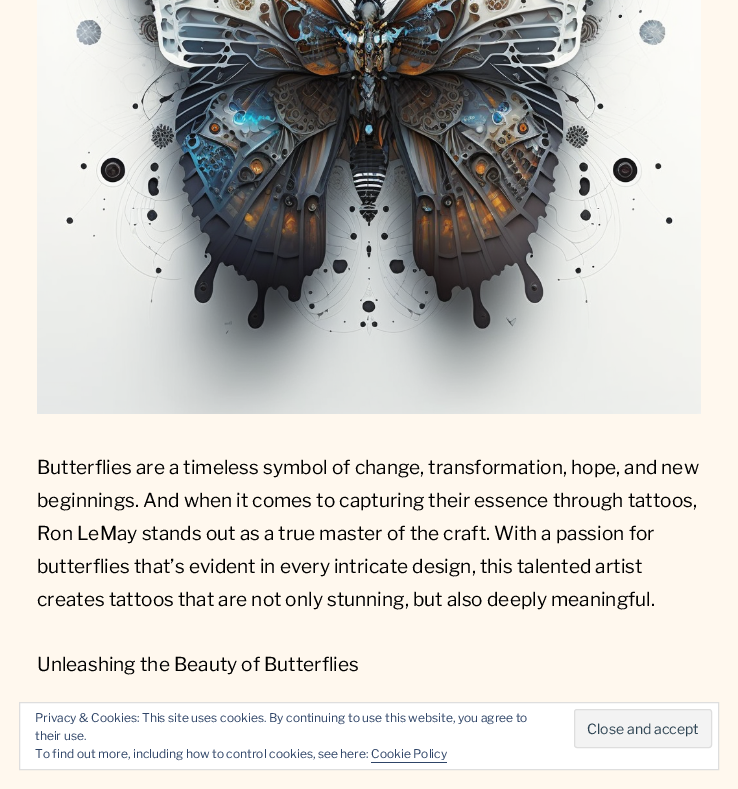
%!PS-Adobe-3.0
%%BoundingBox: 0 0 738 789
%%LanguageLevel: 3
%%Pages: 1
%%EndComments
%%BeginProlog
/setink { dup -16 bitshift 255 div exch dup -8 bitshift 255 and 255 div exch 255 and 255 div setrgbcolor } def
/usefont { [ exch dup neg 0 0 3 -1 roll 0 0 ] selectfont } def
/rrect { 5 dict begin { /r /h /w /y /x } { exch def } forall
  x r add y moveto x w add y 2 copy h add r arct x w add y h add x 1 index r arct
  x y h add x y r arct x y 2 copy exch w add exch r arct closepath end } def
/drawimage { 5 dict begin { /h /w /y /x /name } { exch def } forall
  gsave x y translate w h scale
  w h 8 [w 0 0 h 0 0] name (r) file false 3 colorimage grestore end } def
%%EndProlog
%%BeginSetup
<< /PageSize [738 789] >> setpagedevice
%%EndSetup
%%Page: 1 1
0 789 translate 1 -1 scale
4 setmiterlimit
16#FFF8EE setink
0 0 738 789 rectfill
(img1.raw) 37 0 664 414 drawimage
/LibreFranklin-Regular 19.1 usefont
16#000000 setink
[
    [(Butterflies are a timeless symbol of change, transformation, hope, and new) 37 474]
    [(beginnings. And when it comes to capturing their essence through tattoos,) 37 507]
    [(Ron LeMay stands out as a true master of the craft. With a passion for) 37 540]
    [(butterflies that’s evident in every intricate design, this talented artist) 37 573]
    [(creates tattoos that are not only stunning, but also deeply meaningful.) 37 606]
    [(Unleashing the Beauty of Butterflies) 37 671]
] { aload pop moveto show } forall
16#FFFFFF setink
19.5 702.5 moveto 718.5 702.5 lineto 718.5 769.5 lineto 19.5 769.5 lineto closepath gsave fill grestore
16#DEDEDE setink
stroke
/LibreFranklin-Regular 12 usefont
16#2E4467 setink
35 722 moveto (Privacy & Cookies: This site uses cookies. By continuing to use this website, you agree to) show
35 740 moveto (their use.) show
16#F3F3F3 setink
574.5 709.5 137 38 2.5 rrect gsave fill grestore
16#DEDEDE setink
stroke
/LibreFranklin-Regular 14 usefont
16#2E4453 setink
587 734 moveto (Close and accept) show
/LibreFranklin-Regular 12 usefont
16#2E4467 setink
35 758 moveto (To find out more, including how to control cookies, see here: Cookie Policy) show
371 762 76 1 rectfill
showpage
%%EOF
